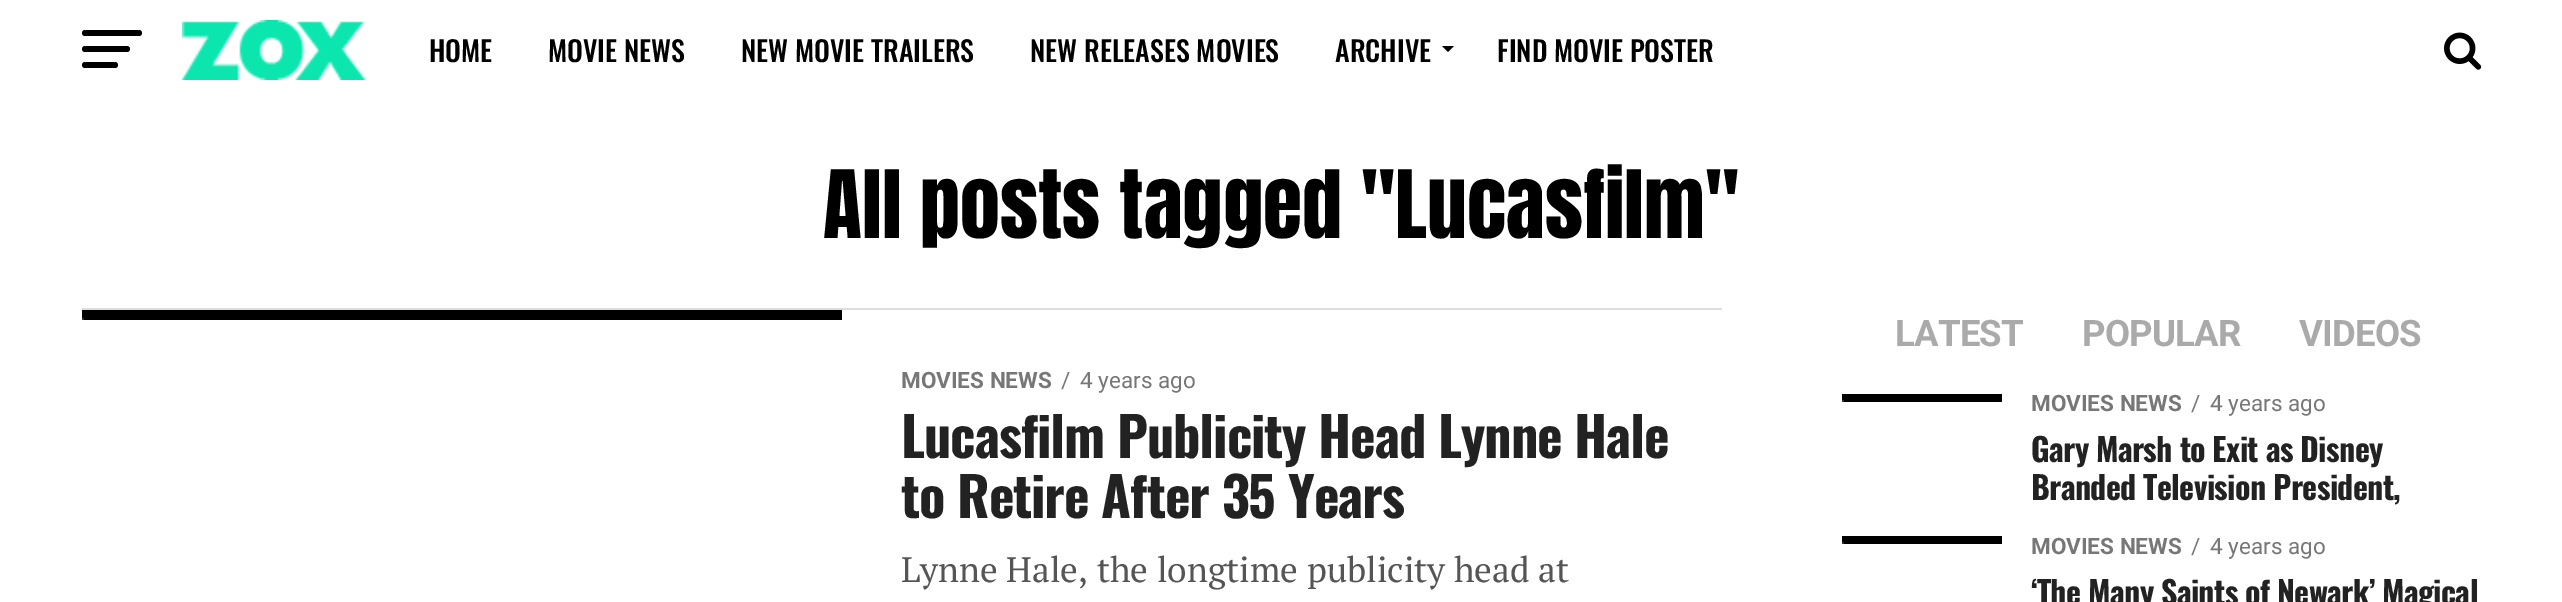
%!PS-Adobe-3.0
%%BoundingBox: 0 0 2562 602
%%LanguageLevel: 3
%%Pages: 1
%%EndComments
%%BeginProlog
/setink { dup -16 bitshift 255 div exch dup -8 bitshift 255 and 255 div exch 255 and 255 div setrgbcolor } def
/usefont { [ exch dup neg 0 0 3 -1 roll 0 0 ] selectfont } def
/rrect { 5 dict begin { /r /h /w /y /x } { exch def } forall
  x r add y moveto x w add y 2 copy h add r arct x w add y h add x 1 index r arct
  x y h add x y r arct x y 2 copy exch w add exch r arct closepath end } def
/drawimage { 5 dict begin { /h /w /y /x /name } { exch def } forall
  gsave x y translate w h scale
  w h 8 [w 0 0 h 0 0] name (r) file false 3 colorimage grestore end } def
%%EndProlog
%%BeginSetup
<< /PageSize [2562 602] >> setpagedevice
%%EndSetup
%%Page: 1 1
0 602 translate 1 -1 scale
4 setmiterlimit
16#FFFFFF setink
0 0 2562 602 rectfill
16#000000 setink
82 30 60 6 3 rrect fill
82 46 48 6 3 rrect fill
82 62 36 6 3 rrect fill
(img1.raw) 182 20 184 60 drawimage
/Oswald-Medium 28 usefont
[
    [(HOME) 429 62]
    [(MOVIE NEWS) 548 62]
    [(NEW MOVIE TRAILERS) 741 62]
    [(NEW RELEASES MOVIES) 1030 62]
    [(ARCHIVE) 1335 62]
] { aload pop moveto show } forall
1442 46 moveto 1454 46 lineto 1448 52 lineto closepath fill
1497 62 moveto (FIND MOVIE POSTER) show
(img2.raw) 2444 32 38 38 drawimage
/Anton-Regular 80 usefont
823 238 moveto (All posts tagged "Lucasfilm") show
[
    [82 308 1640 2 16#DDDDDD]
    [82 310 760 10 16#000000]
    [82 318 2 2 16#333333]
] { aload pop setink rectfill } forall
/Roboto-Bold 22.5 usefont
16#777777 setink
901 388 moveto (MOVIES NEWS) show
/Roboto-Regular 22.5 usefont
1061 388 moveto (/) show
1080 388 moveto (4 years ago) show
/Oswald-Bold 54.4 usefont
16#222222 setink
901 458 moveto -1.1 0 (Lucasfilm Publicity Head Lynne Hale) ashow
901 518 moveto -1.1 0 (to Retire After 35 Years) ashow
/PTSerif-Regular 35.25 usefont
16#555555 setink
901 582 moveto (Lynne Hale, the longtime publicity head at) show
/Roboto-Bold 36.5 usefont
16#AAAAAA setink
1895 346 moveto -0.75 0 (LATEST) ashow
2082 346 moveto -0.75 0 (POPULAR) ashow
2299 346 moveto -0.75 0 (VIDEOS) ashow
16#000000 setink
1842 394 160 8 rectfill
16#333333 setink
1842 400 2 2 rectfill
/Roboto-Bold 22.5 usefont
16#777777 setink
2031 411 moveto (MOVIES NEWS) show
/Roboto-Regular 22.5 usefont
2191 411 moveto (/) show
2210 411 moveto (4 years ago) show
/Oswald-Bold 32 usefont
16#222222 setink
2031 462 moveto -0.65 0 (Gary Marsh to Exit as Disney) ashow
2031 500 moveto -0.65 0 (Branded Television President,) ashow
16#000000 setink
1842 536 160 8 rectfill
16#333333 setink
1842 542 2 2 rectfill
/Roboto-Bold 22.5 usefont
16#777777 setink
2031 554 moveto (MOVIES NEWS) show
/Roboto-Regular 22.5 usefont
2191 554 moveto (/) show
2210 554 moveto (4 years ago) show
/Oswald-Bold 32 usefont
16#222222 setink
2031 605 moveto -0.65 0 (‘The Many Saints of Newark’ Magical) ashow
showpage
%%EOF
